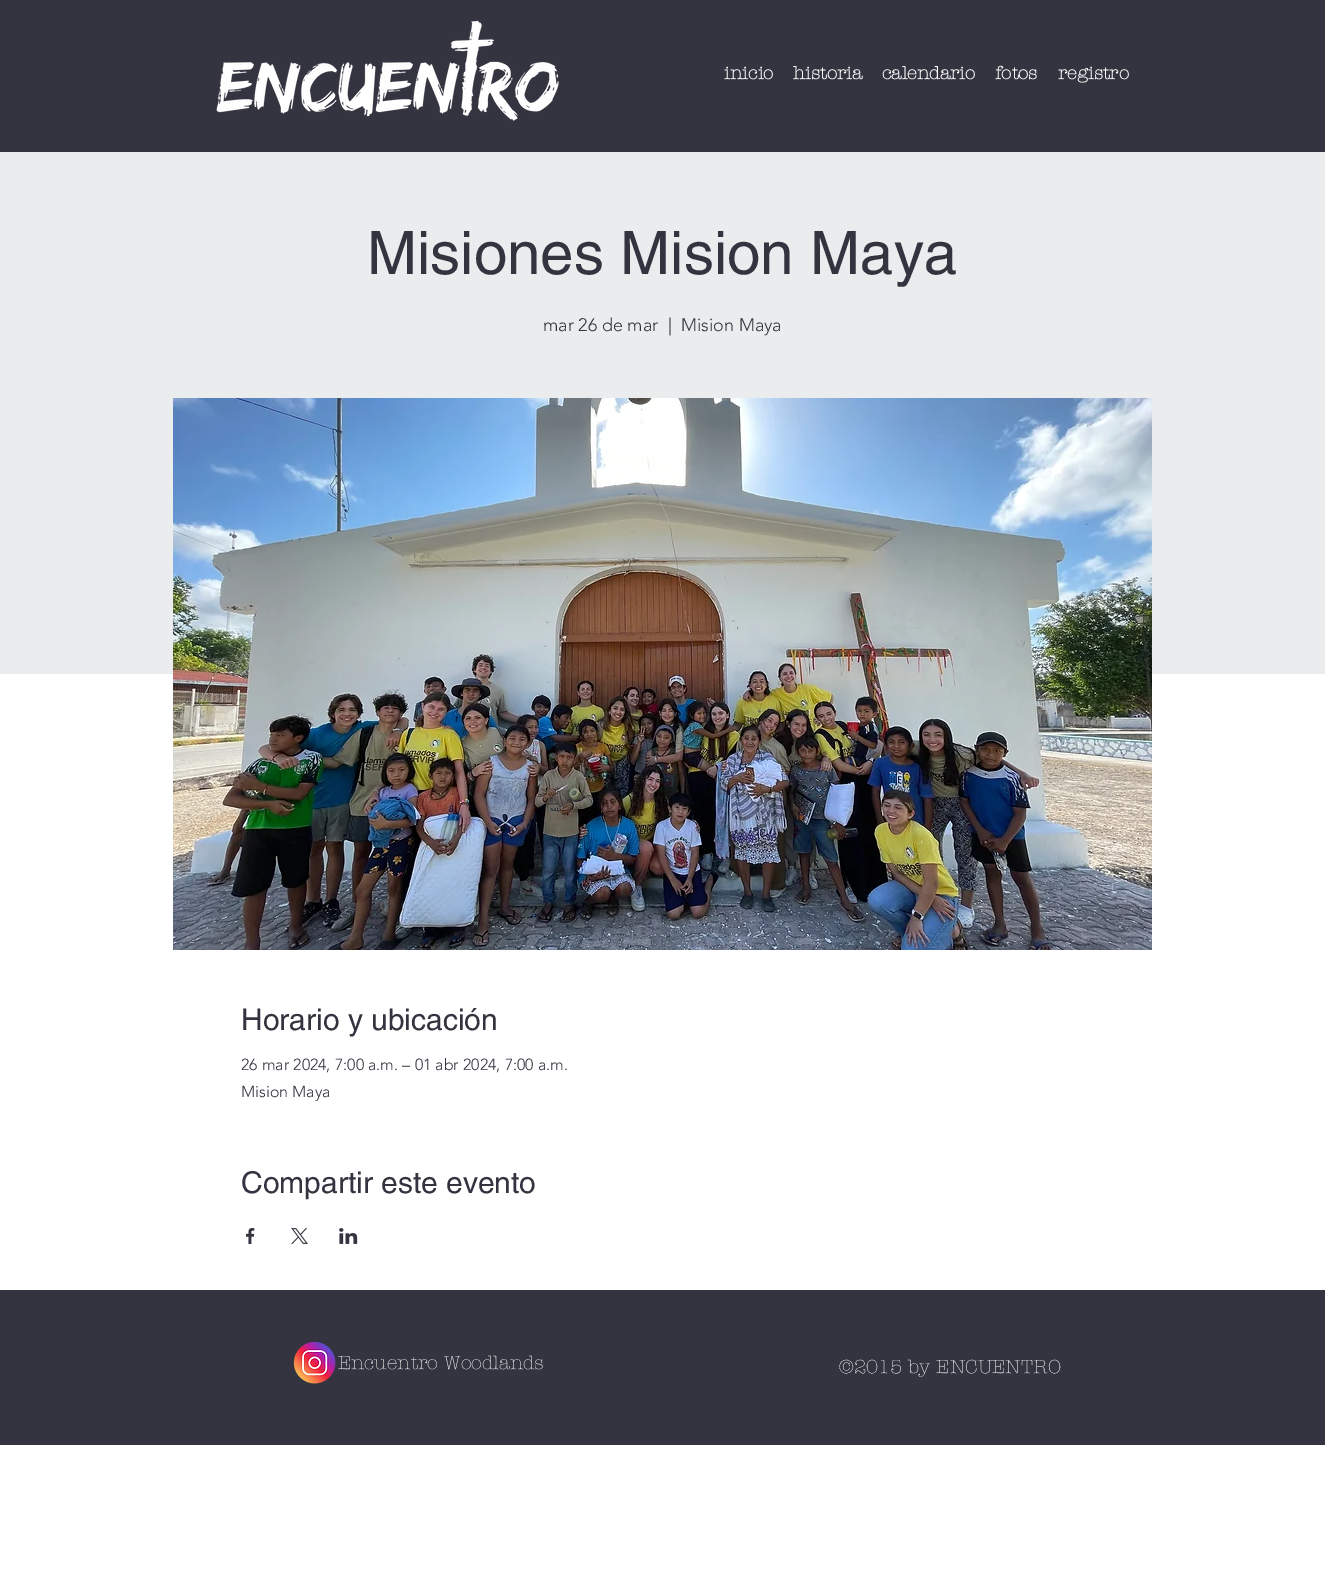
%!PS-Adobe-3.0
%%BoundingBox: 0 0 1325 1588
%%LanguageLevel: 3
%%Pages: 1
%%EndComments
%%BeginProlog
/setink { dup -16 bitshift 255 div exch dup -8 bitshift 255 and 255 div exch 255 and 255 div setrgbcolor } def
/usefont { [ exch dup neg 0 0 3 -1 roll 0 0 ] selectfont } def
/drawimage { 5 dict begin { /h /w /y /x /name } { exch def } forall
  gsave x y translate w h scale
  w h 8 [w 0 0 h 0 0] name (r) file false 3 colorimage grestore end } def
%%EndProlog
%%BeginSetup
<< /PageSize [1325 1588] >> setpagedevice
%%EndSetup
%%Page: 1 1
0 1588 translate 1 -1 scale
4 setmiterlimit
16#FFFFFF setink
0 0 1325 1588 rectfill
16#33343F setink
0 0 1325 152 rectfill
(img1.raw) 216 20 343 101 drawimage
/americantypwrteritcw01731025-Bold 18 usefont
16#FFFFFF setink
[
    [(inicio) 724 79]
    [(historia) 793 79]
    [(calendario) 882 79]
    [(fotos) 995 79]
    [(registro) 1058 79]
] { aload pop moveto show } forall
16#EBECED setink
0 152 1325 522 rectfill
/helvetica-Regular 60 usefont
16#33343F setink
367 274 moveto (Misiones Mision Maya) show
/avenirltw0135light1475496-Light 18 usefont
[
    [(mar 26 de mar) 543 331]
    [(|) 668 331]
    [(Mision Maya) 681 331]
] { aload pop moveto show } forall
(img2.raw) 173 398 979 552 drawimage
/helvetica-Regular 30 usefont
241 1030 moveto (Horario y ubicación) show
/avenirltw0135light1475496-Light 16 usefont
241 1070 moveto (26 mar 2024, 7:00 a.m. – 01 abr 2024, 7:00 a.m.) show
241 1097 moveto (Mision Maya) show
/helvetica-Regular 30 usefont
241 1193 moveto (Compartir este evento) show
(img3.raw) 246 1228 9 16 drawimage
(img4.raw) 291 1228 17 16 drawimage
(img5.raw) 339 1228 19 16 drawimage
0 1290 1325 155 rectfill
(img6.raw) 293 1341 43 43 drawimage
/americantypwrteritcw01731025-Light 19 usefont
16#FFFFFF setink
338 1369 moveto (Encuentro Woodlands) show
839 1373 moveto (©2015 by ENCUENTRO) show
showpage
%%EOF
